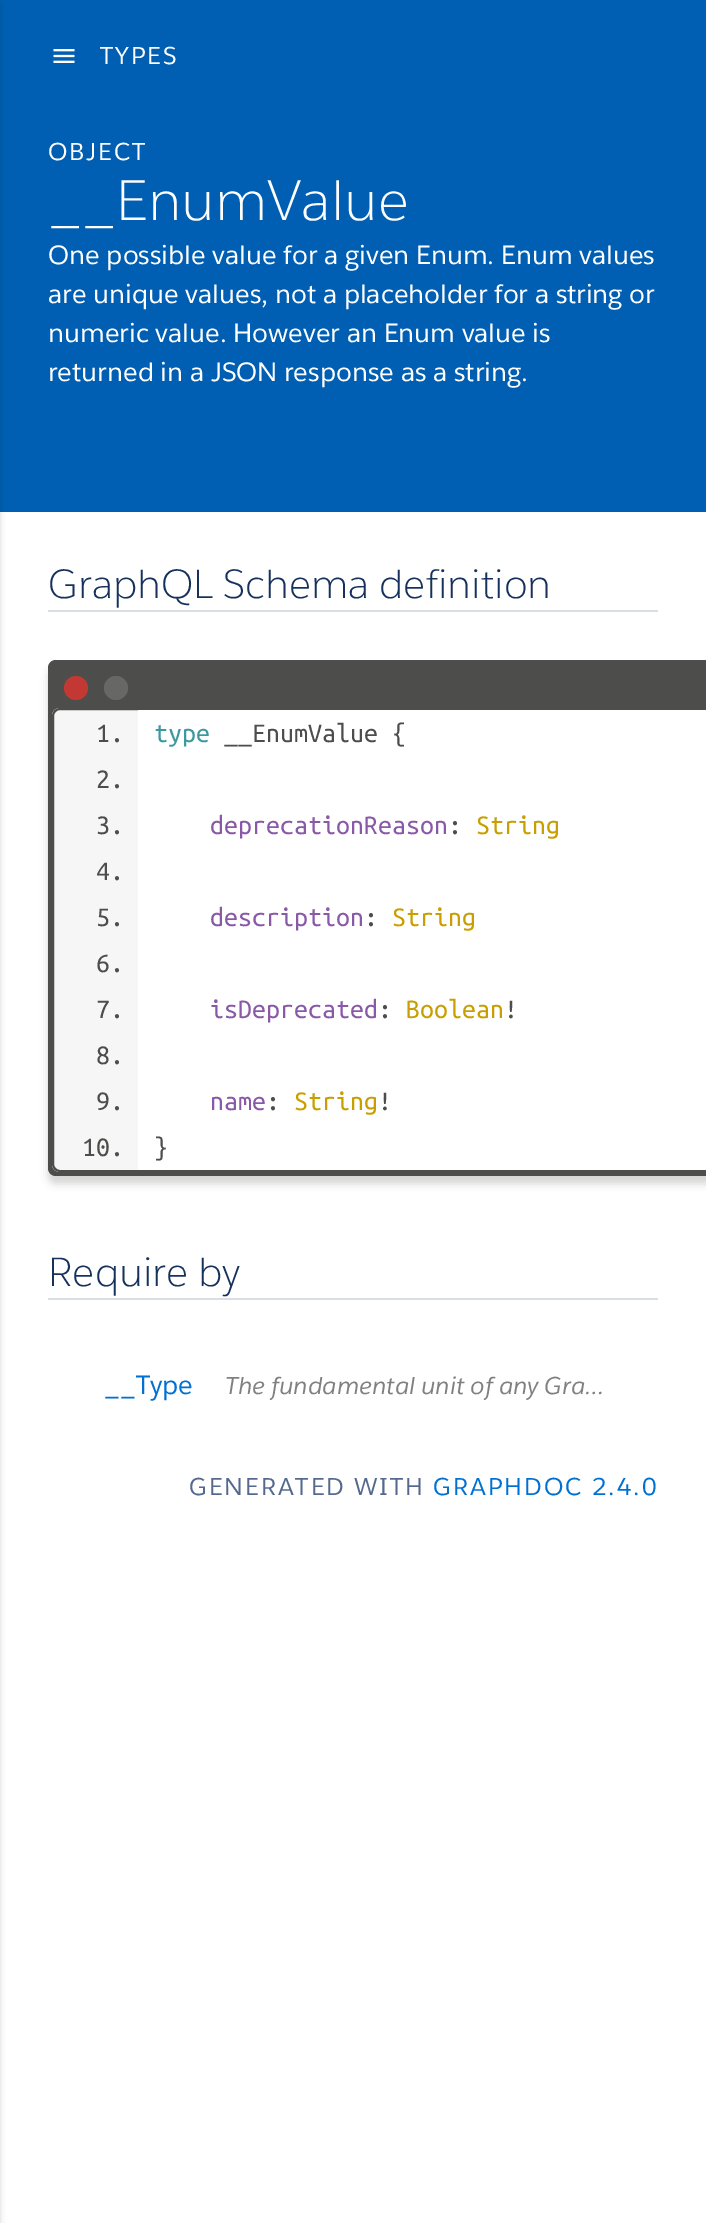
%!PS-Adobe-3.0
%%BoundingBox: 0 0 706 2223
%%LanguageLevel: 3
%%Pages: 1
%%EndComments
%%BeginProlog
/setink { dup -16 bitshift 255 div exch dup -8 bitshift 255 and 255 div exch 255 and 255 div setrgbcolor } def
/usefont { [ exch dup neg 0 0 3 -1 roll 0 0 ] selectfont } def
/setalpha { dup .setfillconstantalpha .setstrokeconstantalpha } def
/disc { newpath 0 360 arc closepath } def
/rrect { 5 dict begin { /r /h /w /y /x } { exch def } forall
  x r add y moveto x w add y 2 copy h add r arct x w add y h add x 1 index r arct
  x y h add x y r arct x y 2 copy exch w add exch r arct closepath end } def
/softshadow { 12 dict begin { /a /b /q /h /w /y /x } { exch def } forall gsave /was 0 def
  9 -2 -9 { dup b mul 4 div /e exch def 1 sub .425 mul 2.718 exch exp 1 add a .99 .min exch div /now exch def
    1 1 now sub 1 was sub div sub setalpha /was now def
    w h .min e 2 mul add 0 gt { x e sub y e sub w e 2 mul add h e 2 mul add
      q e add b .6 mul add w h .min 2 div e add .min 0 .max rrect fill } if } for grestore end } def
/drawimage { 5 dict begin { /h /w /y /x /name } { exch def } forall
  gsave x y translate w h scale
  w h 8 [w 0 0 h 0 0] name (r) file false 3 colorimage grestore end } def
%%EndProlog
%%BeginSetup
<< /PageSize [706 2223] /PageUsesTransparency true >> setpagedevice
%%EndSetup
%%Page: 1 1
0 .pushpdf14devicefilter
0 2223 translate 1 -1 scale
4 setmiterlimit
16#FFFFFF setink
0 0 706 2223 rectfill
16#005FB2 setink
0 0 706 512 rectfill
16#000000 setink
-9 4 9 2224 0 3 0.16 softshadow
(img1.raw) 53 49 22 14 drawimage
/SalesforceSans-Regular 24 usefont
16#FFFFFF setink
100 64 moveto 2 0 (TYPES) ashow
48 160 moveto 2 0 (OBJECT) ashow
/SalesforceSans-Light 56 usefont
48 220 moveto (__EnumValue) show
/SalesforceSans-Regular 26 usefont
[
    [(One possible value for a given Enum. Enum values) 48 264]
    [(are unique values, not a placeholder for a string or) 48 303]
    [(numeric value. However an Enum value is) 48 342]
    [(returned in a JSON response as a string.) 48 381]
] { aload pop moveto show } forall
16#D8DDE6 setink
48 610 610 2 rectfill
/SalesforceSans-Light 40 usefont
16#16325C setink
48 598 moveto (GraphQL Schema definition) show
16#000000 setink
48 668 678 516 8 4 0.16 softshadow
16#4D4D4C setink
56 660 moveto 706 660 lineto 706 1176 lineto 56 1176 lineto 51.5 1176 48 1172.5 48 1168 curveto 48 668 lineto 48 663.5 51.5 660 56 660 curveto closepath fill
16#C23934 setink
76 688 12 disc fill
16#676765 setink
116 688 12 disc fill
16#F6F6F6 setink
60 708 moveto 706 708 lineto 706 1172 lineto 60 1172 lineto 55.5 1172 52 1168.5 52 1164 curveto 52 716 lineto 52 711.5 55.5 708 60 708 curveto closepath fill
16#4D4D4C setink
2 setlinewidth
53 709 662 462 7 rrect stroke
16#FFFFFF setink
138 710 568 460 rectfill
/UbuntuMono-Regular 28 usefont
16#4D4D4C setink
96 742 moveto (1.) show
16#3E999F setink
154 742 moveto (type) show
16#4D4D4C setink
[
    [(__EnumValue {) 224 742]
    [(2.) 96 788]
    [(3.) 96 834]
] { aload pop moveto show } forall
16#8959A8 setink
210 834 moveto (deprecationReason) show
16#4D4D4C setink
448 834 moveto (:) show
16#C99E00 setink
476 834 moveto (String) show
16#4D4D4C setink
96 880 moveto (4.) show
96 926 moveto (5.) show
16#8959A8 setink
210 926 moveto (description) show
16#4D4D4C setink
364 926 moveto (:) show
16#C99E00 setink
392 926 moveto (String) show
16#4D4D4C setink
96 972 moveto (6.) show
96 1018 moveto (7.) show
16#8959A8 setink
210 1018 moveto (isDeprecated) show
16#4D4D4C setink
378 1018 moveto (:) show
16#C99E00 setink
406 1018 moveto (Boolean) show
16#4D4D4C setink
[
    [(!) 504 1018]
    [(8.) 96 1064]
    [(9.) 96 1110]
] { aload pop moveto show } forall
16#8959A8 setink
210 1110 moveto (name) show
16#4D4D4C setink
266 1110 moveto (:) show
16#C99E00 setink
294 1110 moveto (String) show
16#4D4D4C setink
[
    [(!) 378 1110]
    [(10.) 82 1156]
    [(}) 154 1156]
] { aload pop moveto show } forall
16#D8DDE6 setink
48 1298 610 2 rectfill
/SalesforceSans-Light 40 usefont
16#16325C setink
48 1286 moveto (Require by) show
/SalesforceSans-Regular 26 usefont
16#0070D2 setink
104 1394 moveto (__Type) show
/SalesforceSans-Italic 24 usefont
16#808080 setink
225 1394 moveto (The fundamental unit of any Gra…) show
/SalesforceSans-Regular 24 usefont
16#54698D setink
189 1495 moveto 2 0 (GENERATED WITH) ashow
16#0070D2 setink
433 1495 moveto 2 0 (GRAPHDOC 2.4.0) ashow
.poppdf14devicefilter showpage
%%EOF
